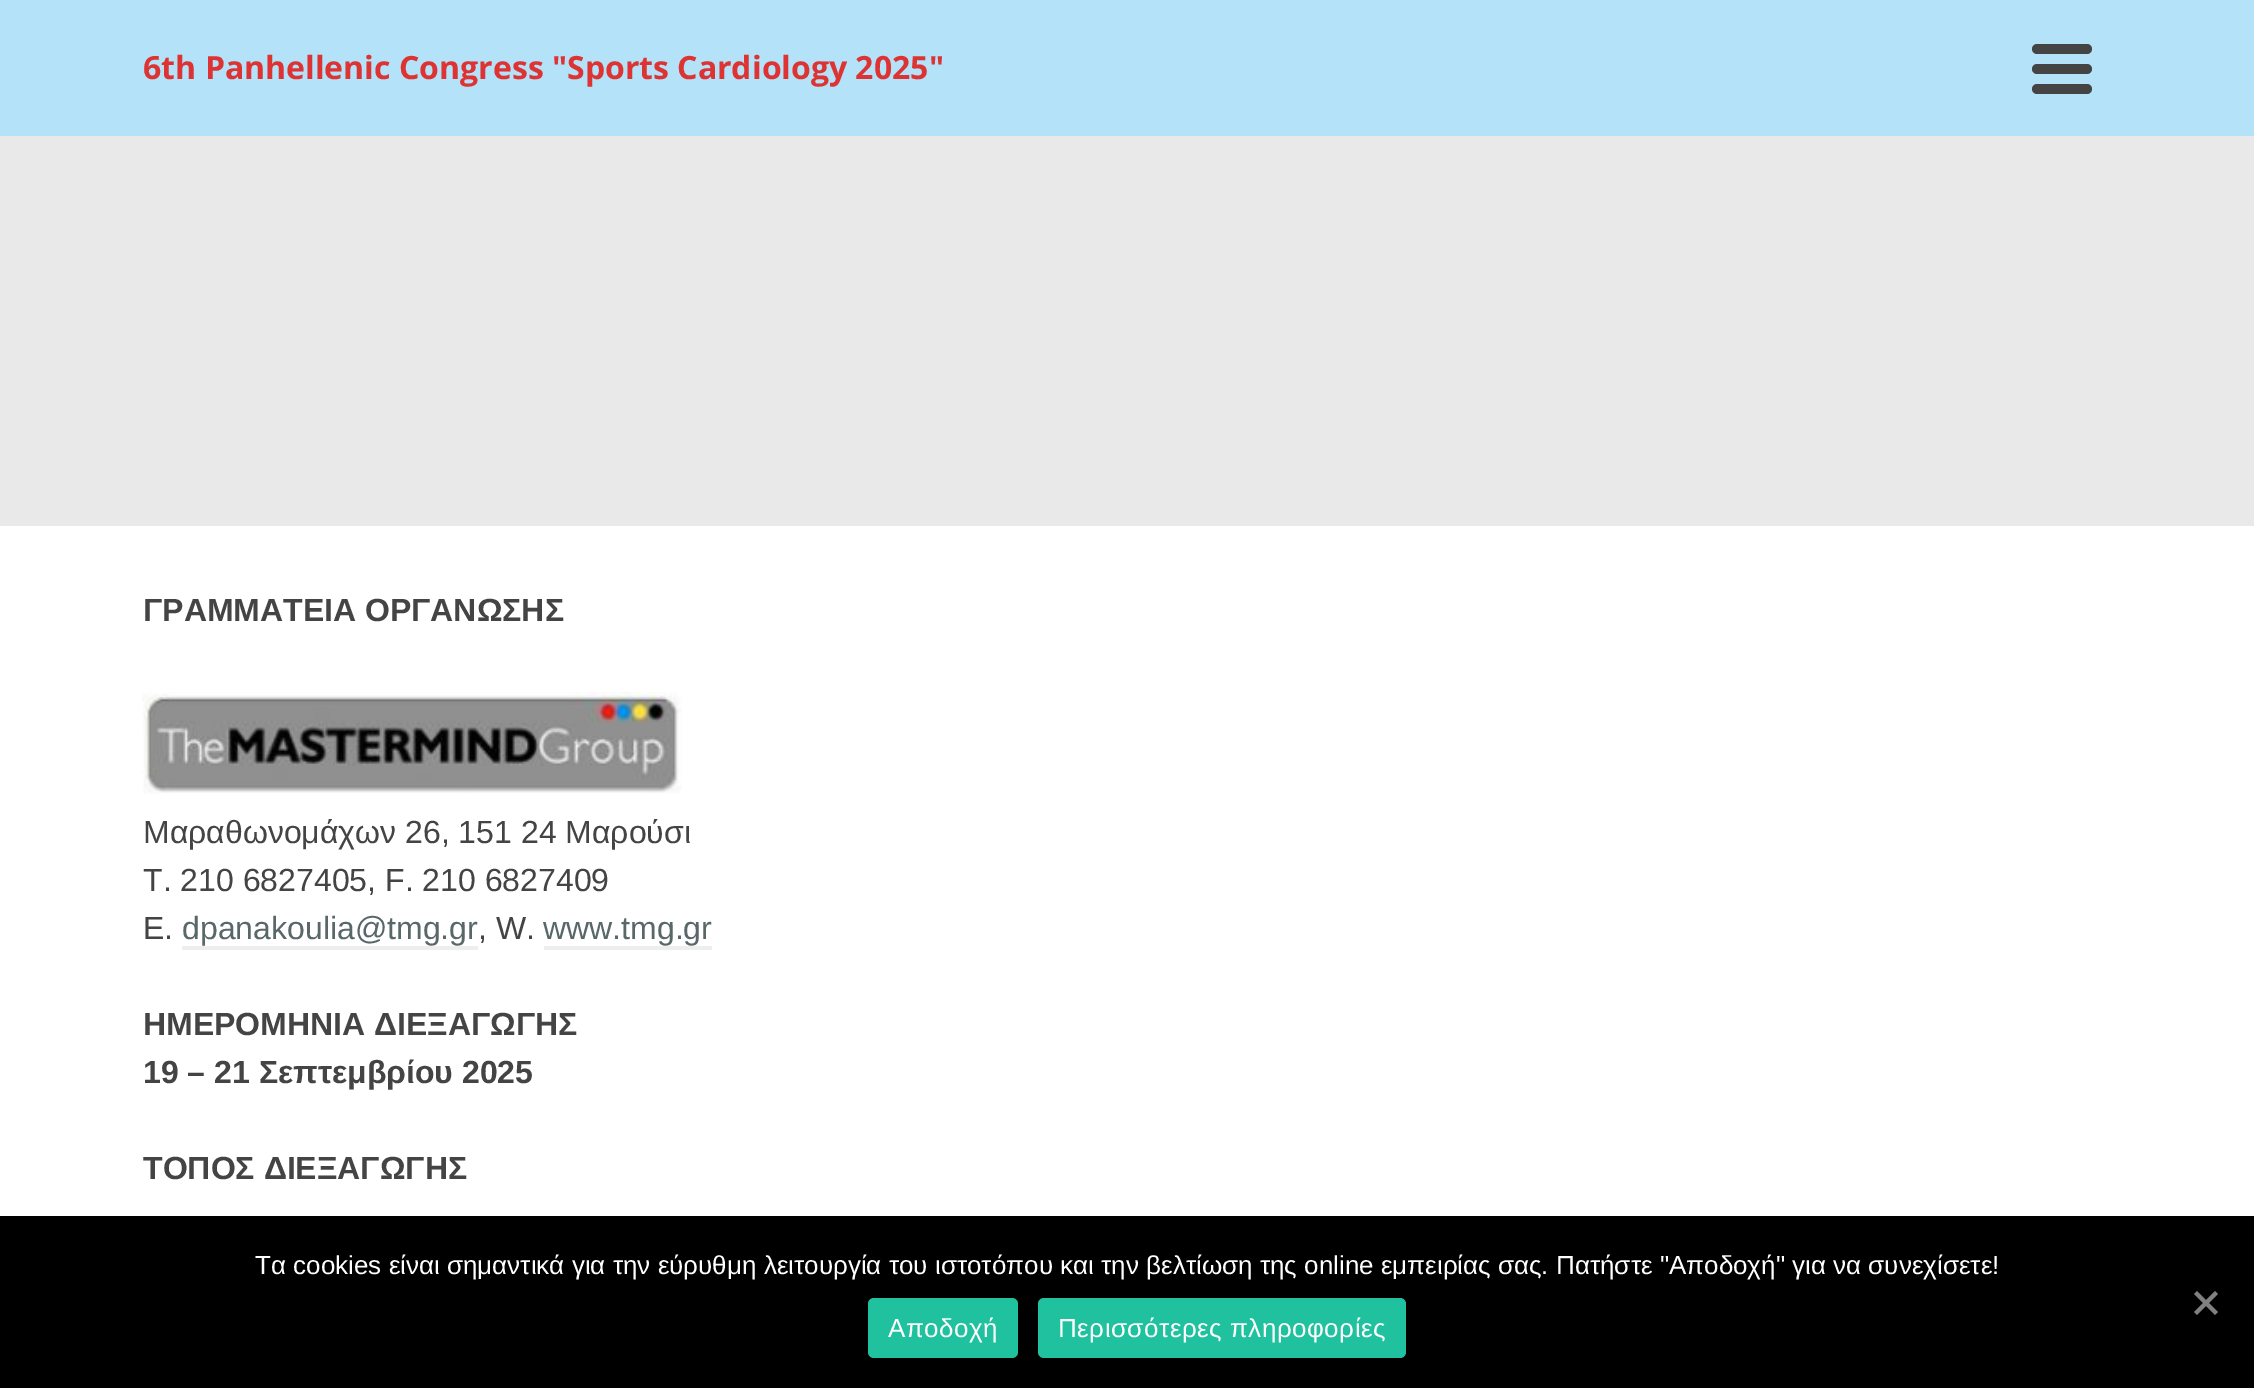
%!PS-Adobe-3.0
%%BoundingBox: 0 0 2254 1388
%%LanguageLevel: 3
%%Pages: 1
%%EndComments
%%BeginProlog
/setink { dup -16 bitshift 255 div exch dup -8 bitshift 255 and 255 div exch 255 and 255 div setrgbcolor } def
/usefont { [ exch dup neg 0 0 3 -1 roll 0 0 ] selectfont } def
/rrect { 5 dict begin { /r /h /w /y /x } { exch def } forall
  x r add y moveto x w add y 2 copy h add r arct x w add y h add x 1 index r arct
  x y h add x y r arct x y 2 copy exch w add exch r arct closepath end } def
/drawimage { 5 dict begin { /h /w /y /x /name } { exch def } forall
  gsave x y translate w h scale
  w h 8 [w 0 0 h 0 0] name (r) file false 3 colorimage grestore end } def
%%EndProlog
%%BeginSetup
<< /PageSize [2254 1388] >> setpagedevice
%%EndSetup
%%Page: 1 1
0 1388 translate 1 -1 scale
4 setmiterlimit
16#FFFFFF setink
0 0 2254 1388 rectfill
16#B4E2F9 setink
0 0 2254 136 rectfill
/OpenSans-Bold 32 usefont
16#DD3333 setink
143 79 moveto (6th Panhellenic Congress "Sports Cardiology 2025") show
16#444444 setink
2032 44 60 10 5 rrect fill
2032 64 60 10 5 rrect fill
2032 84 60 10 5 rrect fill
16#E9E9E9 setink
0 136 2254 390 rectfill
/LiberationSans-Bold 32 usefont
16#444444 setink
143 621 moveto (ΓΡΑΜΜΑΤΕΙΑ ΟΡΓΑΝΩΣΗΣ) show
(img1.raw) 142 692 540 102 drawimage
/LiberationSans-Regular 32 usefont
[
    [(Μαραθωνομάχων 26, 151 24 Μαρούσι) 143 843]
    [(Τ. 210 6827405, F. 210 6827409) 143 891]
    [(E.) 143 939]
] { aload pop moveto show } forall
16#596769 setink
182 939 moveto (dpanakoulia@tmg.gr) show
16#EEEEEE setink
182 946 296 4 rectfill
16#444444 setink
478 939 moveto (, W.) show
16#596769 setink
543 939 moveto (www.tmg.gr) show
16#EEEEEE setink
544 946 168 4 rectfill
/LiberationSans-Bold 32 usefont
16#444444 setink
[
    [(ΗΜΕΡΟΜΗΝΙΑ ΔΙΕΞΑΓΩΓΗΣ) 143 1035]
    [(19 – 21 Σεπτεμβρίου 2025) 143 1083]
    [(ΤΟΠΟΣ ΔΙΕΞΑΓΩΓΗΣ) 143 1179]
] { aload pop moveto show } forall
16#000000 setink
0 1216 2254 172 rectfill
/LiberationSans-Regular 26 usefont
16#FFFFFF setink
255 1274 moveto (Τα cookies είναι σημαντικά για την εύρυθμη λειτουργία του ιστοτόπου και την βελτίωση της online εμπειρίας σας. Πατήστε "Αποδοχή" για να συνεχίσετε!) show
16#808080 setink
2215 1291 moveto 2218 1294 lineto 2197 1315 lineto 2194 1312 lineto closepath fill
2194 1294 moveto 2197 1291 lineto 2218 1312 lineto 2215 1315 lineto closepath fill
16#20C19E setink
868 1298 150 60 6 rrect fill
16#FFFFFF setink
888 1337 moveto 0.5 0 (Αποδοχή) ashow
16#20C19E setink
1038 1298 368 60 6 rrect fill
16#FFFFFF setink
1058 1337 moveto 0.5 0 (Περισσότερες πληροφορίες) ashow
showpage
%%EOF
